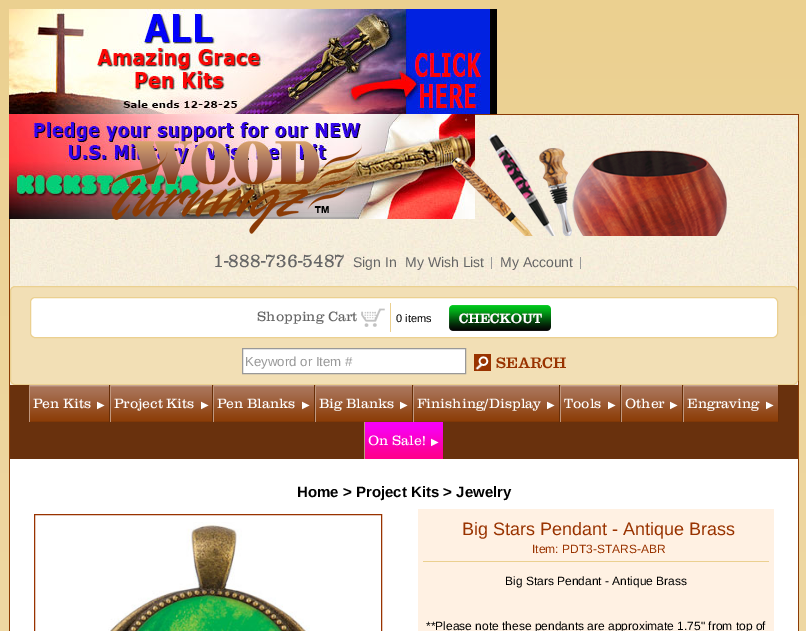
%!PS-Adobe-3.0
%%BoundingBox: 0 0 806 631
%%LanguageLevel: 3
%%Pages: 1
%%EndComments
%%BeginProlog
/setink { dup -16 bitshift 255 div exch dup -8 bitshift 255 and 255 div exch 255 and 255 div setrgbcolor } def
/usefont { [ exch dup neg 0 0 3 -1 roll 0 0 ] selectfont } def
/rrect { 5 dict begin { /r /h /w /y /x } { exch def } forall
  x r add y moveto x w add y 2 copy h add r arct x w add y h add x 1 index r arct
  x y h add x y r arct x y 2 copy exch w add exch r arct closepath end } def
/drawimage { 5 dict begin { /h /w /y /x /name } { exch def } forall
  gsave x y translate w h scale
  w h 8 [w 0 0 h 0 0] name (r) file false 3 colorimage grestore end } def
%%EndProlog
%%BeginSetup
<< /PageSize [806 631] >> setpagedevice
%%EndSetup
%%Page: 1 1
0 631 translate 1 -1 scale
4 setmiterlimit
16#FFFFFF setink
0 0 806 631 rectfill
gsave 0 0 moveto 806 0 lineto 806 631 lineto 0 631 lineto closepath clip newpath
<< /ShadingType 2 /ColorSpace /DeviceRGB /Coords [0 0 0 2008] /Extend [true true] /Function << /FunctionType 2 /Domain [0 1] /C0 [0.922 0.816 0.565] /C1 [0.965 0.918 0.804] /N 1 >> >> shfill grestore
(img1.raw) 9 9 488 105 drawimage
(img3.raw) 10 115 788 270 drawimage
(img2.raw) 9 114 466 105 drawimage
[
    [475 114 324 1 16#8B3B05]
    [798 114 1 517 16#8B3B05]
    [9 219 1 412 16#8B3B05]
] { aload pop setink rectfill } forall
(img4.raw) 107 141 255 93 drawimage
(img5.raw) 451 133 276 103 drawimage
/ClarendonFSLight-Regular 19 usefont
16#666666 setink
213 267 moveto (1-888-736-5487) show
/LiberationSans-Regular 14 usefont
353 267 moveto (Sign In) show
405 267 moveto (My Wish List) show
16#999999 setink
491 257 1 12 rectfill
16#666666 setink
500 267 moveto (My Account) show
16#999999 setink
580 257 1 12 rectfill
16#F2DFB5 setink
10.5 286.5 787 98 4.5 rrect gsave fill grestore
16#EBD090 setink
stroke
16#FFFFFF setink
30.5 297.5 747 40 4.5 rrect gsave fill grestore
16#EBD090 setink
stroke
/ClarendonFSLight-Regular 14 usefont
16#666666 setink
257 321 moveto (Shopping Cart) show
(img6.raw) 361 308 24 19 drawimage
16#EBD090 setink
390 303 1 29 rectfill
/LiberationSans-Regular 11 usefont
16#000000 setink
396 322 moveto (0 items) show
(img7.raw) 449 305 102 26 drawimage
16#FFFFFF setink
242.5 348.5 moveto 465.5 348.5 lineto 465.5 373.5 lineto 242.5 373.5 lineto closepath gsave fill grestore
16#999999 setink
stroke
/LiberationSans-Regular 13.25 usefont
245 366 moveto (Keyword or Item #) show
(img8.raw) 474 354 92 17 drawimage
16#69310D setink
10 385 788 74 rectfill
(img9.raw) 30 385 79 37 drawimage
16#682E08 setink
109 385 1 37 rectfill
16#C0977E setink
29 385 1 37 rectfill
/ClarendonFSLight-Regular 14 usefont
16#FFFFFF setink
33 408 moveto (Pen Kits) show
/DejaVuSans-Regular 10 usefont
97 408 moveto (▶) show
(img10.raw) 111 385 101 37 drawimage
16#682E08 setink
212 385 1 37 rectfill
16#C0977E setink
110 385 1 37 rectfill
/ClarendonFSLight-Regular 14 usefont
16#FFFFFF setink
114 408 moveto (Project Kits) show
/DejaVuSans-Regular 10 usefont
201 408 moveto (▶) show
(img11.raw) 214 385 100 37 drawimage
16#682E08 setink
314 385 1 37 rectfill
16#C0977E setink
213 385 1 37 rectfill
/ClarendonFSLight-Regular 14 usefont
16#FFFFFF setink
217 408 moveto (Pen Blanks) show
/DejaVuSans-Regular 10 usefont
302 408 moveto (▶) show
(img12.raw) 316 385 96 37 drawimage
16#682E08 setink
412 385 1 37 rectfill
16#C0977E setink
315 385 1 37 rectfill
/ClarendonFSLight-Regular 14 usefont
16#FFFFFF setink
319 408 moveto (Big Blanks) show
/DejaVuSans-Regular 10 usefont
400 408 moveto (▶) show
(img13.raw) 414 385 145 37 drawimage
16#682E08 setink
559 385 1 37 rectfill
16#C0977E setink
413 385 1 37 rectfill
/ClarendonFSLight-Regular 14 usefont
16#FFFFFF setink
417 408 moveto (Finishing/Display) show
/DejaVuSans-Regular 10 usefont
547 408 moveto (▶) show
(img14.raw) 561 385 59 37 drawimage
16#682E08 setink
620 385 1 37 rectfill
16#C0977E setink
560 385 1 37 rectfill
/ClarendonFSLight-Regular 14 usefont
16#FFFFFF setink
564 408 moveto (Tools) show
/DejaVuSans-Regular 10 usefont
608 408 moveto (▶) show
(img15.raw) 622 385 60 37 drawimage
16#682E08 setink
682 385 1 37 rectfill
16#C0977E setink
621 385 1 37 rectfill
/ClarendonFSLight-Regular 14 usefont
16#FFFFFF setink
625 408 moveto (Other) show
/DejaVuSans-Regular 10 usefont
670 408 moveto (▶) show
(img16.raw) 684 385 94 37 drawimage
16#682E08 setink
778 385 1 37 rectfill
16#C0977E setink
683 385 1 37 rectfill
/ClarendonFSLight-Regular 14 usefont
16#FFFFFF setink
687 408 moveto (Engraving) show
/DejaVuSans-Regular 10 usefont
766 408 moveto (▶) show
(img17.raw) 365 422 78 37 drawimage
16#682E08 setink
443 422 1 37 rectfill
16#C0977E setink
364 422 1 37 rectfill
/ClarendonFSLight-Regular 14 usefont
16#FFFFFF setink
368 445 moveto (On Sale!) show
/DejaVuSans-Regular 10 usefont
431 445 moveto (▶) show
10 459 788 172 rectfill
/LiberationSans-Bold 15 usefont
16#000000 setink
297 497 moveto (Home > Project Kits > Jewelry) show
16#993300 setink
34.5 514.5 347 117 rectstroke
(img18.raw) 108 522 202 109 drawimage
16#FFF1E3 setink
418 509 356 122 rectfill
16#EBD090 setink
423 561 346 1 rectfill
/LiberationSans-Regular 18 usefont
16#993300 setink
462 535 moveto (Big Stars Pendant - Antique Brass) show
/LiberationSans-Regular 12 usefont
532 553 moveto (Item: PDT3-STARS-ABR) show
16#000000 setink
505 585 moveto (Big Stars Pendant - Antique Brass) show
426 630 moveto (**Please note these pendants are approximate 1.75" from top of) show
showpage
%%EOF
